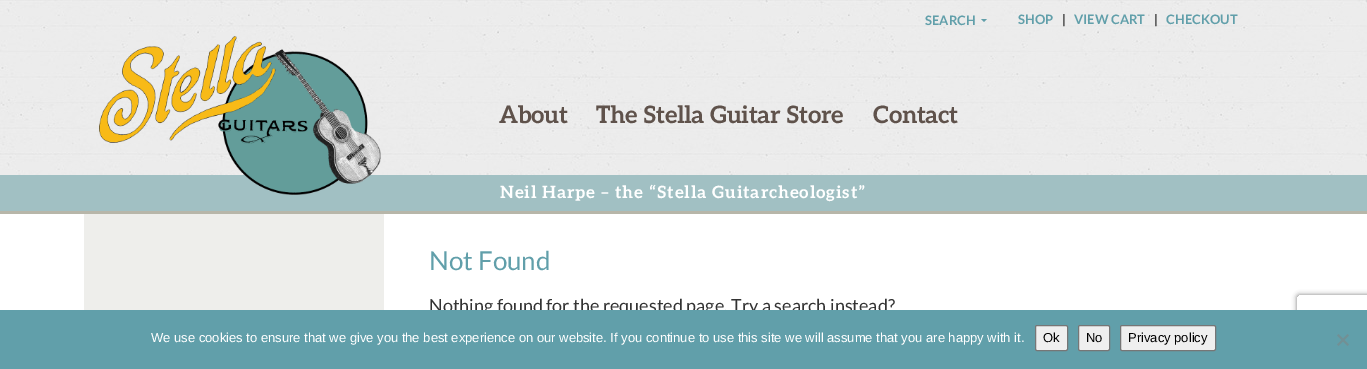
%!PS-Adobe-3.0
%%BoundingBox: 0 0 1367 369
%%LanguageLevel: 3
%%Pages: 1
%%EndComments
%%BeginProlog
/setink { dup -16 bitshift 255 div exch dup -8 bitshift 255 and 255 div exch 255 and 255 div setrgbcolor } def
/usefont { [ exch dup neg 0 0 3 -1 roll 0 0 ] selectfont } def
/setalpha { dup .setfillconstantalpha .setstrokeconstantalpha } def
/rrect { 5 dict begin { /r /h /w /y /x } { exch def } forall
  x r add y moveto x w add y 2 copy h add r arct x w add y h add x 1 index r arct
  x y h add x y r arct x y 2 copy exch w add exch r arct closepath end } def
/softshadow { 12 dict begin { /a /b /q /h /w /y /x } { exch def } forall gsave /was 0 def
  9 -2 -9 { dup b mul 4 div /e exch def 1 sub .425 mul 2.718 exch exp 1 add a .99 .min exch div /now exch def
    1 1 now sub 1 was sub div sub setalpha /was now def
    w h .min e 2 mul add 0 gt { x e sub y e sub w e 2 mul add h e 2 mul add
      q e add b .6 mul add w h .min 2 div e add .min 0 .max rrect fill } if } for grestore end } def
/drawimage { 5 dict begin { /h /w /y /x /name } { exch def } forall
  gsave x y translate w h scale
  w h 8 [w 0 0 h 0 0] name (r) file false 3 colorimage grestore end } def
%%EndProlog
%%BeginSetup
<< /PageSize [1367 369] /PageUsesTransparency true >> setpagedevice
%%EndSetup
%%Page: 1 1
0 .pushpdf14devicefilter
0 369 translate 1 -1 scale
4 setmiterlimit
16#FFFFFF setink
0 0 1367 369 rectfill
(img1.raw) 0 0 1367 175 drawimage
/Lato-Bold 13 usefont
16#619FAA setink
925 25 moveto (SEARCH) show
981 19 moveto 987 19 lineto 984 22 lineto closepath fill
1018 24 moveto (SHOP) show
16#333333 setink
1062 24 moveto (|) show
16#619FAA setink
1074 24 moveto (VIEW CART) show
16#333333 setink
1154 24 moveto (|) show
16#619FAA setink
1166 24 moveto (CHECKOUT) show
16#A1C0C3 setink
0 175 1367 36 rectfill
(img2.raw) 99 36 282 159 drawimage
/Aleo-Bold 24 usefont
16#5F524B setink
499 123 moveto -0.4 0 (About) ashow
596 123 moveto -0.4 0 (The Stella Guitar Store) ashow
873 123 moveto -0.4 0 (Contact) ashow
16#B7B6A9 setink
0 211 1367 3 rectfill
/Aleo-Bold 17 usefont
16#FFFFFF setink
500 198 moveto 0.85 0 (Neil Harpe – the “Stella Guitarcheologist”) ashow
16#EEEEEB setink
84 214 300 96 rectfill
/Lato-Regular 26 usefont
16#619FAA setink
429 270 moveto (Not Found) show
/Lato-Regular 18 usefont
16#333333 setink
429 312 moveto (Nothing found for the requested page. Try a search instead?) show
gsave
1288 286 moveto 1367 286 lineto 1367 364 lineto 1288 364 lineto closepath 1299 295 moveto 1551 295 lineto 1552 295 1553 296 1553 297 curveto 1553 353 lineto 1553 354 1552 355 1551 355 curveto 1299 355 lineto 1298 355 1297 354 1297 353 curveto 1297 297 lineto 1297 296 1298 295 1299 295 curveto closepath eoclip newpath
16#808080 setink
1297 295 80 60 2 2.5 1 softshadow
grestore
16#619FAA setink
0 310 1367 59 rectfill
/LiberationSans-Regular 13 usefont
16#FFFFFF setink
151 342 moveto (We use cookies to ensure that we give you the best experience on our website. If you continue to use this site we will assume that you are happy with it.) show
16#EFEFEF setink
1035.5 325.5 32 25 1.5 rrect gsave fill grestore
16#767676 setink
stroke
16#000000 setink
1043 342 moveto (Ok) show
16#EFEFEF setink
1078.5 325.5 31 25 1.5 rrect gsave fill grestore
16#767676 setink
stroke
16#000000 setink
1086 342 moveto (No) show
16#EFEFEF setink
1120.5 325.5 95 25 1.5 rrect gsave fill grestore
16#767676 setink
stroke
16#000000 setink
1128 342 moveto (Privacy policy) show
16#719095 setink
1347.5 334 moveto 1349 335.5 lineto 1338.5 346 lineto 1337 344.5 lineto closepath fill
1337 335.5 moveto 1338.5 334 lineto 1349 344.5 lineto 1347.5 346 lineto closepath fill
.poppdf14devicefilter showpage
%%EOF
